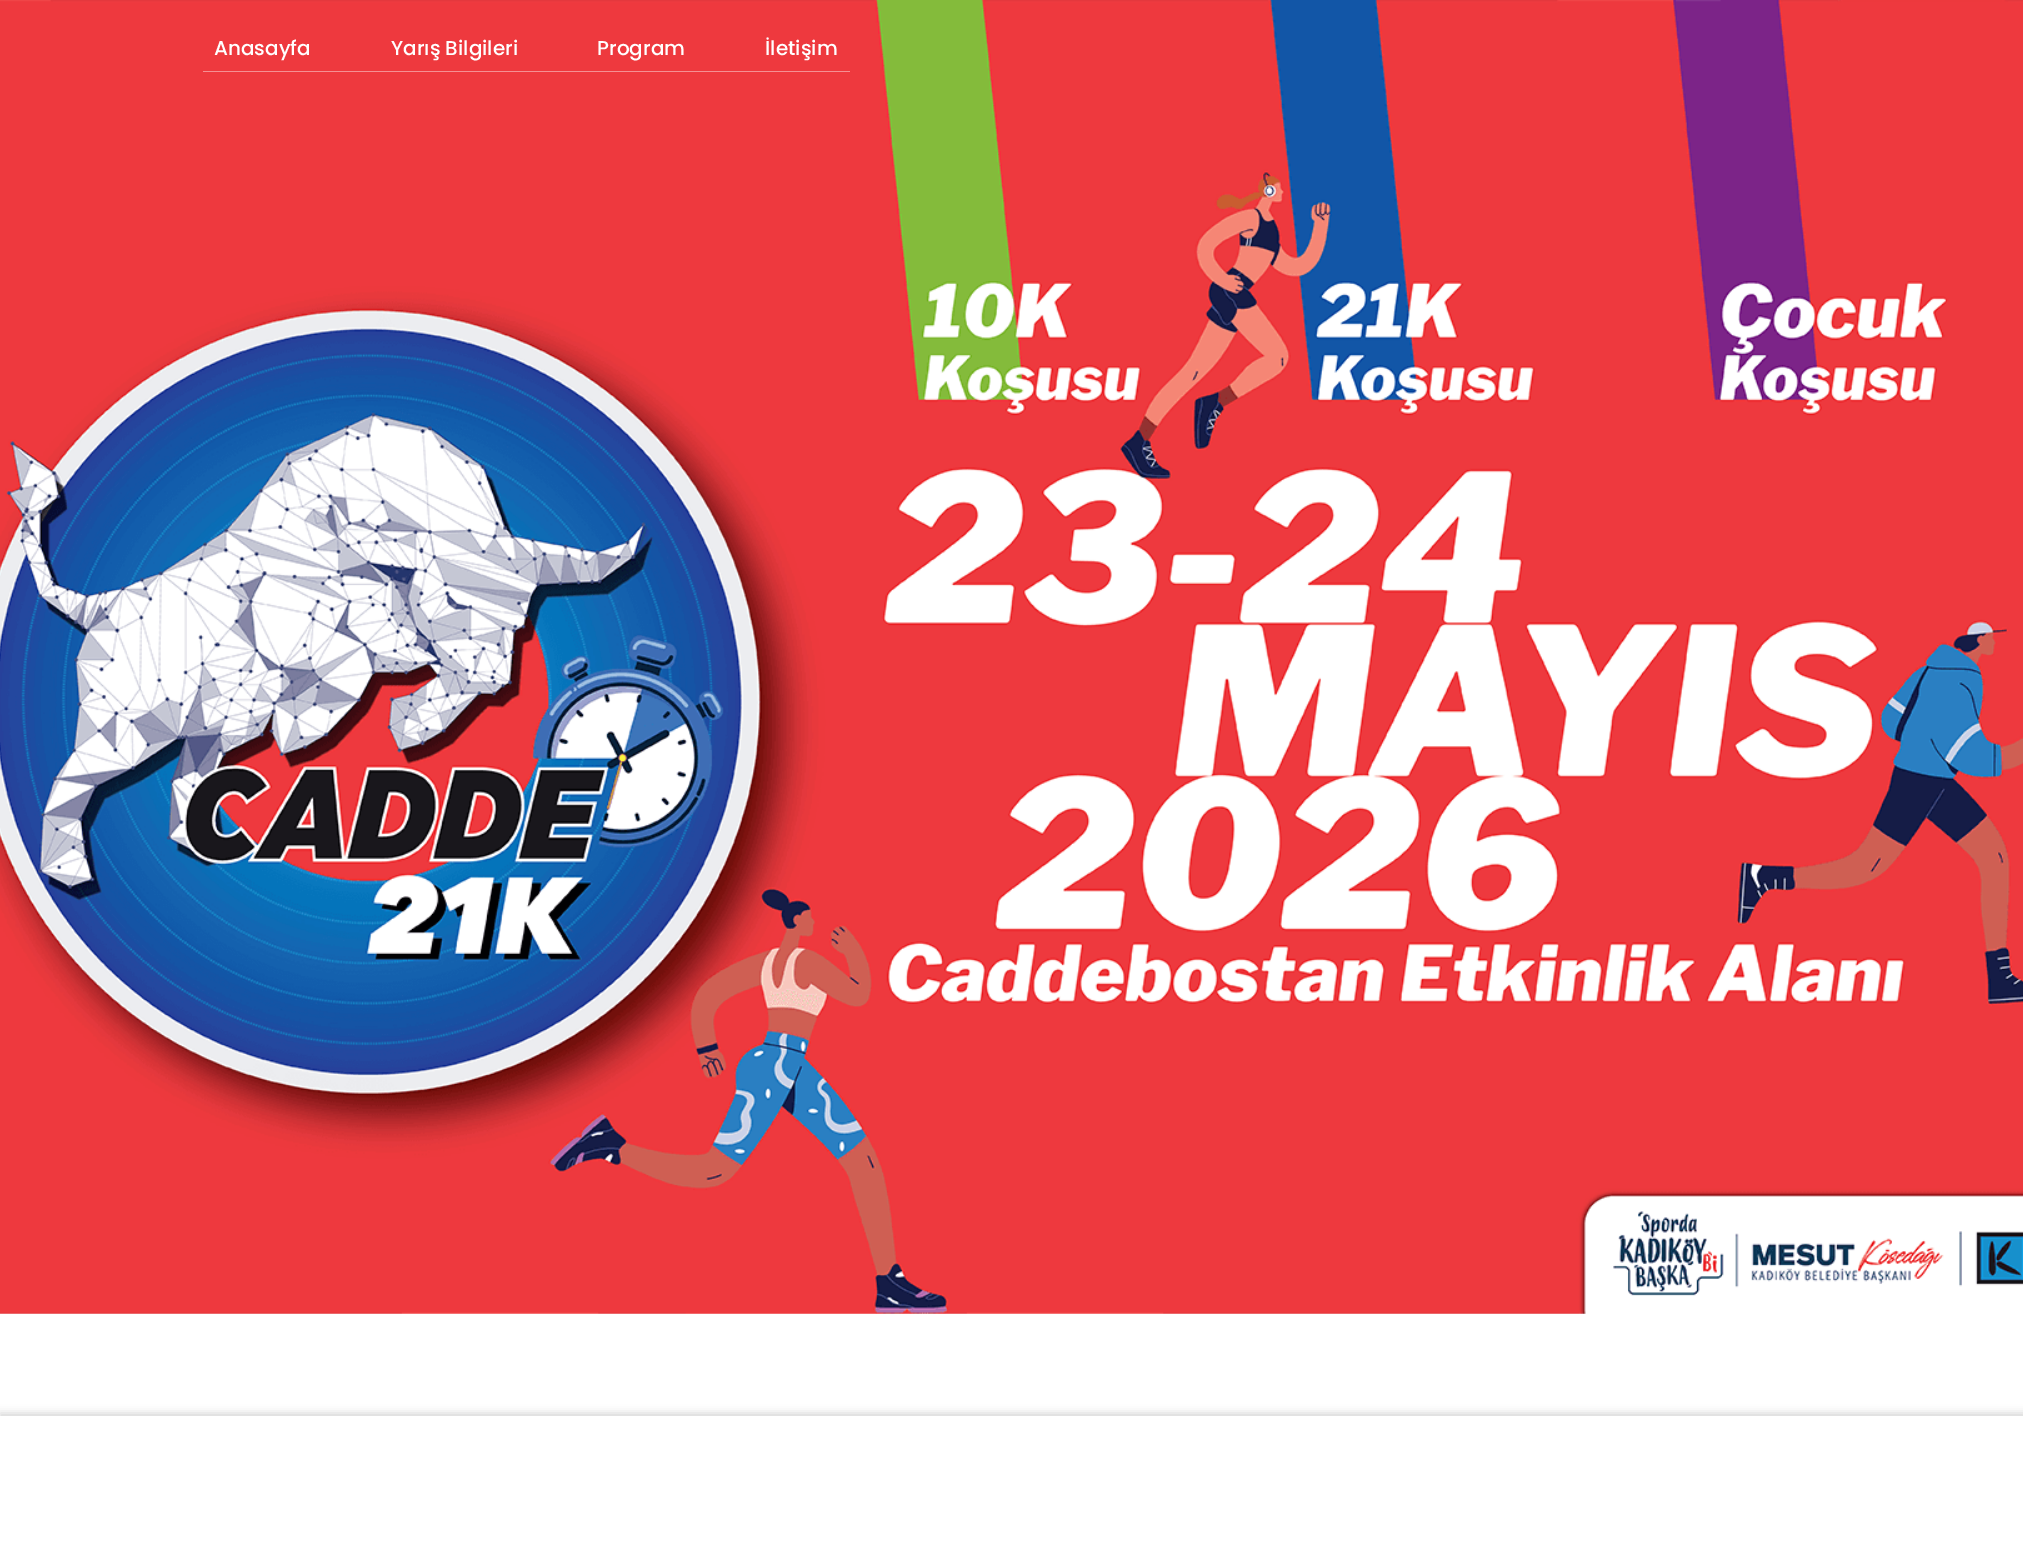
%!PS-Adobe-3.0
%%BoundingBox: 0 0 2023 1545
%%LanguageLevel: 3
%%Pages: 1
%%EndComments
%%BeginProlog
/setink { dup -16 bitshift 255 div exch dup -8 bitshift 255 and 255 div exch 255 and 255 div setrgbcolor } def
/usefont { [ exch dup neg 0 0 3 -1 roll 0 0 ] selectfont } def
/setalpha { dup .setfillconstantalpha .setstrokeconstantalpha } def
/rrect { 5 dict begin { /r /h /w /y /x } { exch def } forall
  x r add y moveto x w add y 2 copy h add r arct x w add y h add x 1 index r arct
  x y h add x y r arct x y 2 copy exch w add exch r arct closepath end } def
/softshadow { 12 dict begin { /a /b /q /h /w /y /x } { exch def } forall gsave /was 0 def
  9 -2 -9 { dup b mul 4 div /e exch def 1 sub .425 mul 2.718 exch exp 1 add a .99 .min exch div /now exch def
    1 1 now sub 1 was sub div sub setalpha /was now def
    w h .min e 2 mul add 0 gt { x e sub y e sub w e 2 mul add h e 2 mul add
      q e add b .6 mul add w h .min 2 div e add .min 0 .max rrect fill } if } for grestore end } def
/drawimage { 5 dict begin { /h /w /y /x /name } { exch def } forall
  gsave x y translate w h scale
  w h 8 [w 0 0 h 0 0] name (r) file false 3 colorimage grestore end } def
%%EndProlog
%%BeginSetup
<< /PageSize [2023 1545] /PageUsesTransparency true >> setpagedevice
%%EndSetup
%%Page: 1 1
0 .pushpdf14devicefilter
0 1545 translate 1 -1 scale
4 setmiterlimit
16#FFFFFF setink
0 0 2023 1545 rectfill
(img1.raw) 0 0 2023 1314 drawimage
16#F59093 setink
203 71 647 1 rectfill
/Poppins-Medium 20 usefont
16#FFFFFF setink
[
    [(Anasayfa) 214 55]
    [(Yarış Bilgileri) 391 55]
    [(Program) 597 55]
    [(İletişim) 765 55]
] { aload pop moveto show } forall
16#000000 setink
0 1413 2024 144 0 4 0.16 softshadow
16#FFFFFF setink
0 1416 2023 129 rectfill
.poppdf14devicefilter showpage
%%EOF
